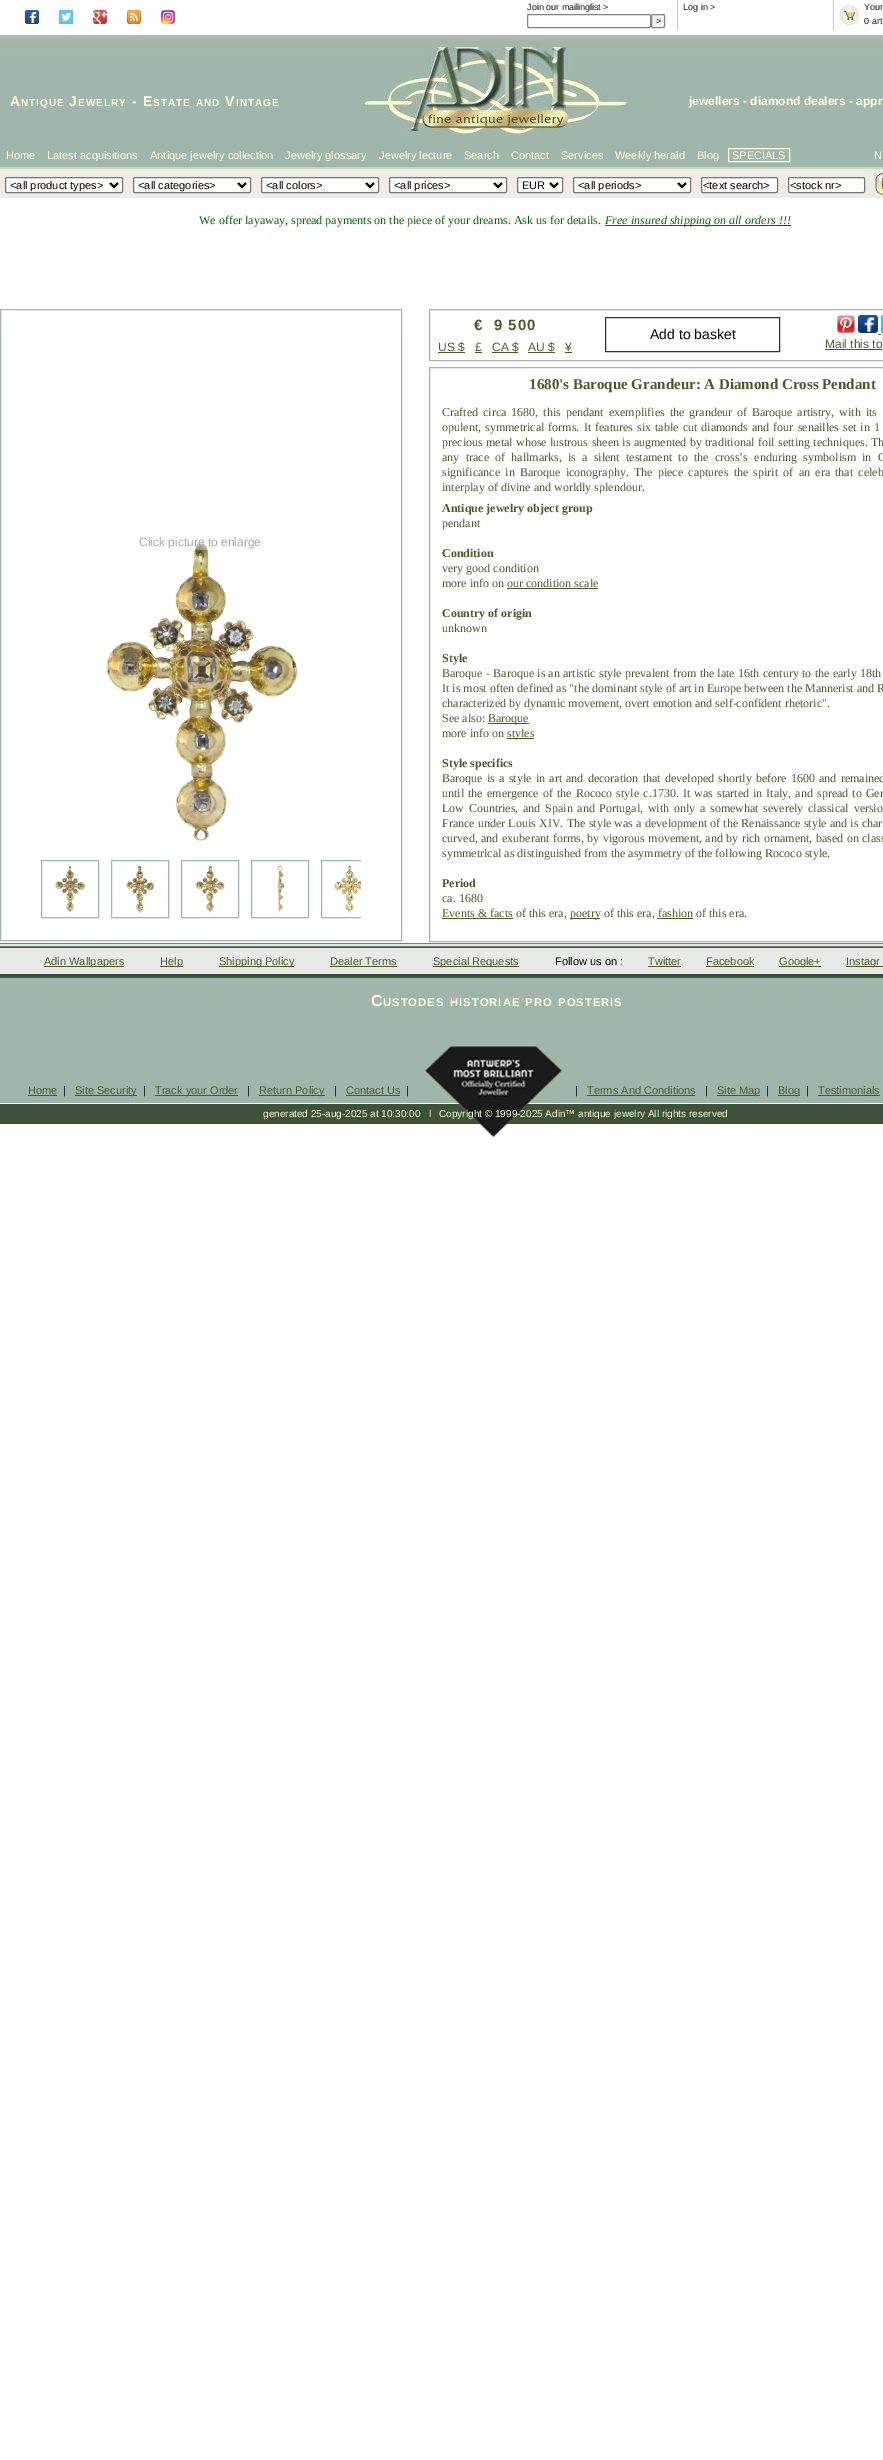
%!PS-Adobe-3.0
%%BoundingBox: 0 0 883 2460
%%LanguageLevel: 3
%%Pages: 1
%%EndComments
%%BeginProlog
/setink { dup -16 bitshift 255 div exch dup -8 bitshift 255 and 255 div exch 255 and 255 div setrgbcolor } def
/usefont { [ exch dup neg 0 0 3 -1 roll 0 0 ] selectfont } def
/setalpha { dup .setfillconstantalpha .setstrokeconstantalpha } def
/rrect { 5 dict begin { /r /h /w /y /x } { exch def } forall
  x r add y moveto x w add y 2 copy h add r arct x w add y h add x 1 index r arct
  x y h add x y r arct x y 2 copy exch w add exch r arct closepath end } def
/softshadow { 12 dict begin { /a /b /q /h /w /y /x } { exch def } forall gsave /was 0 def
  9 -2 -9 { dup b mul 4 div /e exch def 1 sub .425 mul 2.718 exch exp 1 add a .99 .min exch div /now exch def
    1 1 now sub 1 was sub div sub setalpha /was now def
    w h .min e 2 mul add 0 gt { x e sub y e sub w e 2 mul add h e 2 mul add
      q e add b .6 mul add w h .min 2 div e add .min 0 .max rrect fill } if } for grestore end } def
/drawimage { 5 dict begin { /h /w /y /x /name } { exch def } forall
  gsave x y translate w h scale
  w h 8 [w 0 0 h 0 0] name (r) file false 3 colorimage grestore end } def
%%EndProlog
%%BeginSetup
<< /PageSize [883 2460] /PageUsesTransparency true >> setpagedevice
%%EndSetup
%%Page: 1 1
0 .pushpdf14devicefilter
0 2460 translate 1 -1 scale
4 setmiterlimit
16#FFFFFF setink
0 0 883 2460 rectfill
16#A0B6AA setink
0 36 883 131 rectfill
(img7.raw) 361 45 267 98 drawimage
gsave
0 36 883 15 rectclip
16#BBBBBB setink
0 0 883 36 0 7.5 0.9 softshadow
grestore
16#AABDB3 setink
0 35 883 1 rectfill
(img1.raw) 25 10 14 14 drawimage
(img2.raw) 59 10 14 14 drawimage
(img3.raw) 93 10 14 14 drawimage
(img4.raw) 127 10 14 14 drawimage
(img5.raw) 161 10 14 14 drawimage
16#C6C6C6 setink
677 0 1 30 rectfill
/LiberationSans-Regular 9 usefont
16#1A1A1A setink
527 10 moveto (Join our mailinglist >) show
16#848484 setink
527.5 14.5 123 13 1.5 rrect stroke
16#F1F1F1 setink
651.5 14.5 13 13 1.5 rrect gsave fill grestore
16#848484 setink
stroke
16#1A1A1A setink
656 24 moveto (>) show
16#C6C6C6 setink
833 0 1 30 rectfill
16#1A1A1A setink
683 10 moveto (Log in >) show
(img6.raw) 839 5 20 20 drawimage
864 10 moveto (Your) show
864 24 moveto (0 art) show
/LiberationSans-Bold 14 usefont
16#FBFFDC setink
10 106 moveto 1 0 (A) ashow
/LiberationSans-Bold 10 usefont
21 106 moveto 1 0 (NTIQUE) ashow
/LiberationSans-Bold 14 usefont
69 106 moveto 1 0 (J) ashow
/LiberationSans-Bold 10 usefont
78 106 moveto 1 0 (EWELRY) ashow
/LiberationSans-Bold 14 usefont
132 106 moveto 1 0 (- E) ashow
/LiberationSans-Bold 10 usefont
153 106 moveto 1 0 (STATE) ashow
196 106 moveto 1 0 (AND) ashow
/LiberationSans-Bold 14 usefont
225 106 moveto 1 0 (V) ashow
/LiberationSans-Bold 10 usefont
236 106 moveto 1 0 (INTAGE) ashow
/LiberationSans-Bold 12 usefont
689 105 moveto (jewellers - diamond dealers - appr) show
16#CCD8B2 setink
0 167 883 2 rectfill
/LiberationSans-Regular 11 usefont
16#FBFFDC setink
[
    [(Home) 6 159]
    [(Latest acquisitions) 47 159]
    [(Antique jewelry collection) 150 159]
    [(Jewelry glossary) 285 159]
    [(Jewelry lecture) 379 159]
    [(Search) 464 159]
    [(Contact) 511 159]
    [(Services) 561 159]
    [(Weekly herald) 615 159]
    [(Blog) 697 159]
] { aload pop moveto show } forall
728.5 148.5 61 13 rectstroke
732 159 moveto (SPECIALS) show
874 159 moveto (N) show
16#F0EBE7 setink
0 169 883 29 rectfill
16#FFFFFF setink
5.5 177.5 117 15 1.5 rrect gsave fill grestore
16#767676 setink
stroke
16#000000 setink
2 setlinewidth
110 183 moveto 114 187 lineto 118 183 lineto stroke
10 189 moveto (<all product types>) show
16#FFFFFF setink
133.5 177.5 117 15 1.5 rrect gsave fill grestore
16#767676 setink
1 setlinewidth
stroke
16#000000 setink
2 setlinewidth
238 183 moveto 242 187 lineto 246 183 lineto stroke
138 189 moveto (<all categories>) show
16#FFFFFF setink
261.5 177.5 117 15 1.5 rrect gsave fill grestore
16#767676 setink
1 setlinewidth
stroke
16#000000 setink
2 setlinewidth
366 183 moveto 370 187 lineto 374 183 lineto stroke
266 189 moveto (<all colors>) show
16#FFFFFF setink
389.5 177.5 117 15 1.5 rrect gsave fill grestore
16#767676 setink
1 setlinewidth
stroke
16#000000 setink
2 setlinewidth
494 183 moveto 498 187 lineto 502 183 lineto stroke
394 189 moveto (<all prices>) show
16#FFFFFF setink
517.5 177.5 45 15 1.5 rrect gsave fill grestore
16#767676 setink
1 setlinewidth
stroke
16#000000 setink
2 setlinewidth
550 183 moveto 554 187 lineto 558 183 lineto stroke
522 189 moveto (EUR) show
16#FFFFFF setink
573.5 177.5 117 15 1.5 rrect gsave fill grestore
16#767676 setink
1 setlinewidth
stroke
16#000000 setink
2 setlinewidth
678 183 moveto 682 187 lineto 686 183 lineto stroke
578 189 moveto (<all periods>) show
16#FFFFFF setink
701.5 177.5 76 15 1.5 rrect gsave fill grestore
16#767676 setink
1 setlinewidth
stroke
16#000000 setink
703 189 moveto (<text search>) show
16#FFFFFF setink
788.5 177.5 76 15 1.5 rrect gsave fill grestore
16#767676 setink
stroke
16#000000 setink
790 189 moveto (<stock nr>) show
(img8.raw) 870 170 13 26 drawimage
/LiberationSerif-Regular 12 usefont
16#006600 setink
199 224 moveto (We offer layaway, spread payments on the piece of your dreams. Ask us for details.) show
605 225 186 1 rectfill
/LiberationSerif-Italic 12 usefont
605 224 moveto (Free insured shipping on all orders !!!) show
16#A0B6AA setink
0.5 309.5 401 631 rectstroke
(img9.raw) 106 543 192 298 drawimage
0.35 setalpha
16#FFFFFF setink
194 543 14 7 rectfill
/LiberationSans-Regular 12 usefont
1 setalpha
16#A5A5A4 setink
139 546 moveto (Click picture to enlarge) show
16#A0B6AA setink
41.5 860.5 57 57 rectstroke
(img10.raw) 53 865 33 49 drawimage
111.5 860.5 57 57 rectstroke
(img11.raw) 124 864 31 50 drawimage
181.5 860.5 57 57 rectstroke
(img12.raw) 195 864 30 50 drawimage
251.5 860.5 57 57 rectstroke
(img13.raw) 275 864 11 50 drawimage
gsave
41 860 320 65 rectclip
321.5 860.5 57 57 rectstroke
grestore
(img14.raw) 333 864 28 50 drawimage
429.5 309.5 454 51 rectstroke
/LiberationSans-Bold 15 usefont
16#4A5929 setink
474 330 moveto 1 0 (€  9 500) ashow
/LiberationSans-Regular 12 usefont
438 351 moveto (US $) show
438 352 27 1 rectfill
475 351 moveto (£) show
475 352 7 1 rectfill
492 351 moveto (CA $) show
492 352 26 1 rectfill
528 351 moveto (AU $) show
528 352 27 1 rectfill
565 351 moveto (¥) show
565 352 7 1 rectfill
16#333333 setink
605.5 317.5 174 34 rectstroke
/LiberationSans-Regular 14 usefont
16#000000 setink
650 339 moveto (Add to basket) show
(img15.raw) 837 315 18 18 drawimage
(img16.raw) 858 315 20 18 drawimage
(img17.raw) 881 315 2 18 drawimage
16#4A5929 setink
878 334 3 1 rectfill
/LiberationSans-Regular 12 usefont
825 348 moveto (Mail this to) show
825 349 57 1 rectfill
16#A0B6AA setink
429.5 367.5 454 574 rectstroke
/LiberationSerif-Bold 15 usefont
16#4A5929 setink
529 389 moveto (1680's Baroque Grandeur: A Diamond Cross Pendant) show
/LiberationSerif-Regular 12 usefont
442 416 moveto 2 0 32 (Crafted circa 1680, this pendant exemplifies the grandeur of Baroque artistry, with its) widthshow
442 431 moveto 1.1 0 32 (opulent, symmetrical forms. It features six table cut diamonds and four senailles set in 1) widthshow
442 446 moveto 0.4 0 32 (precious metal whose lustrous sheen is augmented by traditional foil setting techniques. Th) widthshow
442 461 moveto 3.25 0 32 (any trace of hallmarks, is a silent testament to the cross’s enduring symbolism in C) widthshow
442 476 moveto 2.25 0 32 (significance in Baroque iconography. The piece captures the spirit of an era that celeb) widthshow
442 491 moveto (interplay of divine and worldly splendour.) show
/LiberationSerif-Bold 12 usefont
442 512 moveto (Antique jewelry object group) show
/LiberationSerif-Regular 12 usefont
442 527 moveto (pendant) show
/LiberationSerif-Bold 12 usefont
442 557 moveto (Condition) show
/LiberationSerif-Regular 12 usefont
442 572 moveto (very good condition) show
442 587 moveto (more info on our condition scale) show
507 588 91 1 rectfill
/LiberationSerif-Bold 12 usefont
442 617 moveto (Country of origin) show
/LiberationSerif-Regular 12 usefont
442 632 moveto (unknown) show
/LiberationSerif-Bold 12 usefont
442 662 moveto (Style) show
/LiberationSerif-Regular 12 usefont
442 677 moveto 0.3 0 32 (Baroque - Baroque is an artistic style prevalent from the late 16th century to the early 18th) widthshow
[
    [(It is most often defined as "the dominant style of art in Europe between the Mannerist and R) 442 692]
    [(characterized by dynamic movement, overt emotion and self-confident rhetoric".) 442 707]
    [(See also:) 442 722]
] { aload pop moveto show } forall
488 723 41 1 rectfill
488 722 moveto (Baroque) show
442 737 moveto (more info on) show
507 738 27 1 rectfill
507 737 moveto (styles) show
/LiberationSerif-Bold 12 usefont
442 767 moveto (Style specifics) show
/LiberationSerif-Regular 12 usefont
442 782 moveto 1.25 0 32 (Baroque is a style in art and decoration that developed shortly before 1600 and remained) widthshow
442 797 moveto 1.1 0 32 (until the emergence of the Rococo style c.1730. It was started in Italy, and spread to Ger) widthshow
442 812 moveto 1.75 0 32 (Low Countries, and Spain and Portugal, with only a somewhat severely classical versio) widthshow
442 827 moveto 0.25 0 32 (France under Louis XIV. The style was a development of the Renaissance style and is char) widthshow
442 842 moveto 0.5 0 32 (curved, and exuberant forms, by vigorous movement, and by rich ornament, based on class) widthshow
442 857 moveto (symmetrical as distinguished from the asymmetry of the following Rococo style.) show
/LiberationSerif-Bold 12 usefont
442 887 moveto (Period) show
/LiberationSerif-Regular 12 usefont
442 902 moveto (ca. 1680) show
442 918 71 1 rectfill
442 917 moveto (Events & facts of this era,) show
570 918 30 1 rectfill
570 917 moveto (poetry of this era, fashion of this era.) show
[
    [657 918 36 1 16#4A5929]
    [0 944 883 2 16#DEEADC]
    [0 943 883 1 16#787F77]
    [0 946 883 1 16#787F77]
    [0 948 883 26 16#E8EAE7]
    [0 947 883 1 16#3E513B]
    [0 974 883 4 16#3E513B]
    [44 966 80 1 16#4A5929]
] { aload pop setink rectfill } forall
/LiberationSans-Regular 11 usefont
44 965 moveto (Adin Wallpapers) show
160 966 23 1 rectfill
160 965 moveto (Help) show
219 966 75 1 rectfill
219 965 moveto (Shipping Policy) show
330 965 moveto (Dealer Terms) show
330 966 67 1 rectfill
433 966 86 1 rectfill
433 965 moveto (Special Requests) show
16#000000 setink
555 965 moveto (Follow us on :) show
16#4A5929 setink
648 965 moveto (Twitter) show
648 966 33 1 rectfill
706 965 moveto (Facebook) show
706 966 48 1 rectfill
779 966 42 1 rectfill
779 965 moveto (Google+) show
846 966 37 1 rectfill
846 965 moveto (Instagr) show
16#A0B6AA setink
0 978 883 125 rectfill
/LiberationSans-Bold 16 usefont
16#FBFFDC setink
371 1006 moveto 1 0 (C) ashow
/LiberationSans-Bold 11.25 usefont
383 1006 moveto 1 0 (USTODES) ashow
450 1006 moveto 1 0 (HISTORIAE) ashow
525 1006 moveto 1 0 (PRO) ashow
558 1006 moveto 1 0 (POSTERIS) ashow
/LiberationSans-Regular 11 usefont
16#4A5929 setink
28 1094 moveto (Home) show
28 1095 29 1 rectfill
16#000000 setink
63 1094 moveto (|) show
16#4A5929 setink
75 1095 62 1 rectfill
75 1094 moveto (Site Security) show
16#000000 setink
143 1094 moveto (|) show
16#4A5929 setink
155 1095 83 1 rectfill
155 1094 moveto (Track your Order) show
16#000000 setink
247 1094 moveto (|) show
16#4A5929 setink
259 1095 66 1 rectfill
259 1094 moveto (Return Policy) show
16#000000 setink
334 1094 moveto (|) show
16#4A5929 setink
346 1094 moveto (Contact Us) show
346 1095 54 1 rectfill
16#000000 setink
406 1094 moveto (|) show
[
    [0 1104 883 20 16#3E513B]
    [0 1103 883 1 16#FBFFDC]
    [0 1124 883 1 16#FBFFDC]
] { aload pop setink rectfill } forall
(img18.raw) 425 1046 137 91 drawimage
16#000000 setink
575 1094 moveto (|) show
16#4A5929 setink
587 1094 moveto (Terms And Conditions) show
587 1095 108 1 rectfill
16#000000 setink
705 1094 moveto (|) show
16#4A5929 setink
717 1095 43 1 rectfill
717 1094 moveto (Site Map) show
16#000000 setink
766 1094 moveto (|) show
16#4A5929 setink
778 1095 22 1 rectfill
778 1094 moveto (Blog) show
16#000000 setink
806 1094 moveto (|) show
16#4A5929 setink
818 1094 moveto (Testimonials) show
818 1095 62 1 rectfill
/LiberationSans-Regular 10 usefont
16#FBFFDC setink
263 1117 moveto (generated 25-aug-2025 at 10:30:00   l   Copyright © 1999-2025 Adin™ antique jewelry All rights reserved) show
.poppdf14devicefilter showpage
%%EOF
